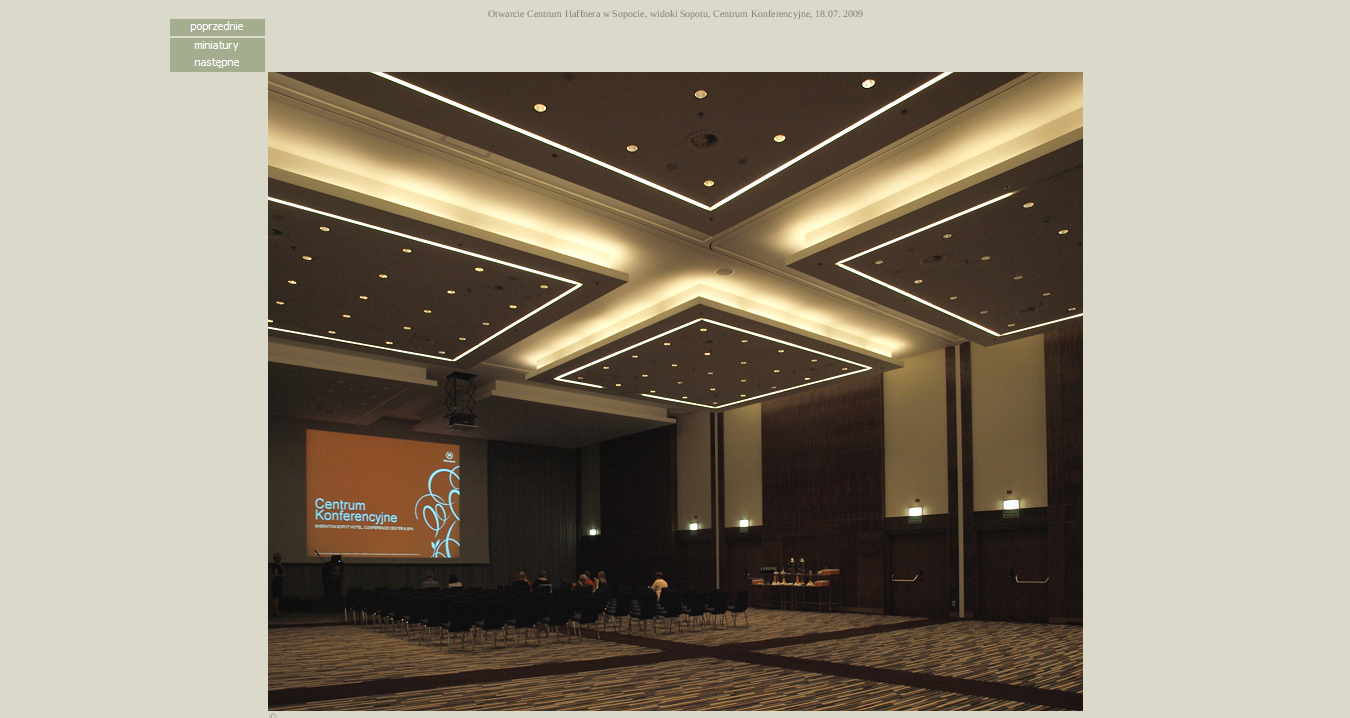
%!PS-Adobe-3.0
%%BoundingBox: 0 0 1350 718
%%LanguageLevel: 3
%%Pages: 1
%%EndComments
%%BeginProlog
/setink { dup -16 bitshift 255 div exch dup -8 bitshift 255 and 255 div exch 255 and 255 div setrgbcolor } def
/usefont { [ exch dup neg 0 0 3 -1 roll 0 0 ] selectfont } def
/drawimage { 5 dict begin { /h /w /y /x /name } { exch def } forall
  gsave x y translate w h scale
  w h 8 [w 0 0 h 0 0] name (r) file false 3 colorimage grestore end } def
%%EndProlog
%%BeginSetup
<< /PageSize [1350 718] >> setpagedevice
%%EndSetup
%%Page: 1 1
0 718 translate 1 -1 scale
4 setmiterlimit
16#DBD9CA setink
0 0 1350 718 rectfill
/LiberationSerif-Regular 10 usefont
16#808080 setink
488 17 moveto (Otwarcie Centrum Haffnera w Sopocie, widoki Sopotu, Centrum Konferencyjne, 18.07. 2009) show
(img1.raw) 170 19 95 17 drawimage
(img2.raw) 170 38 95 17 drawimage
(img3.raw) 170 55 95 17 drawimage
(img4.raw) 268 72 815 639 drawimage
269 720 moveto (©) show
showpage
%%EOF
